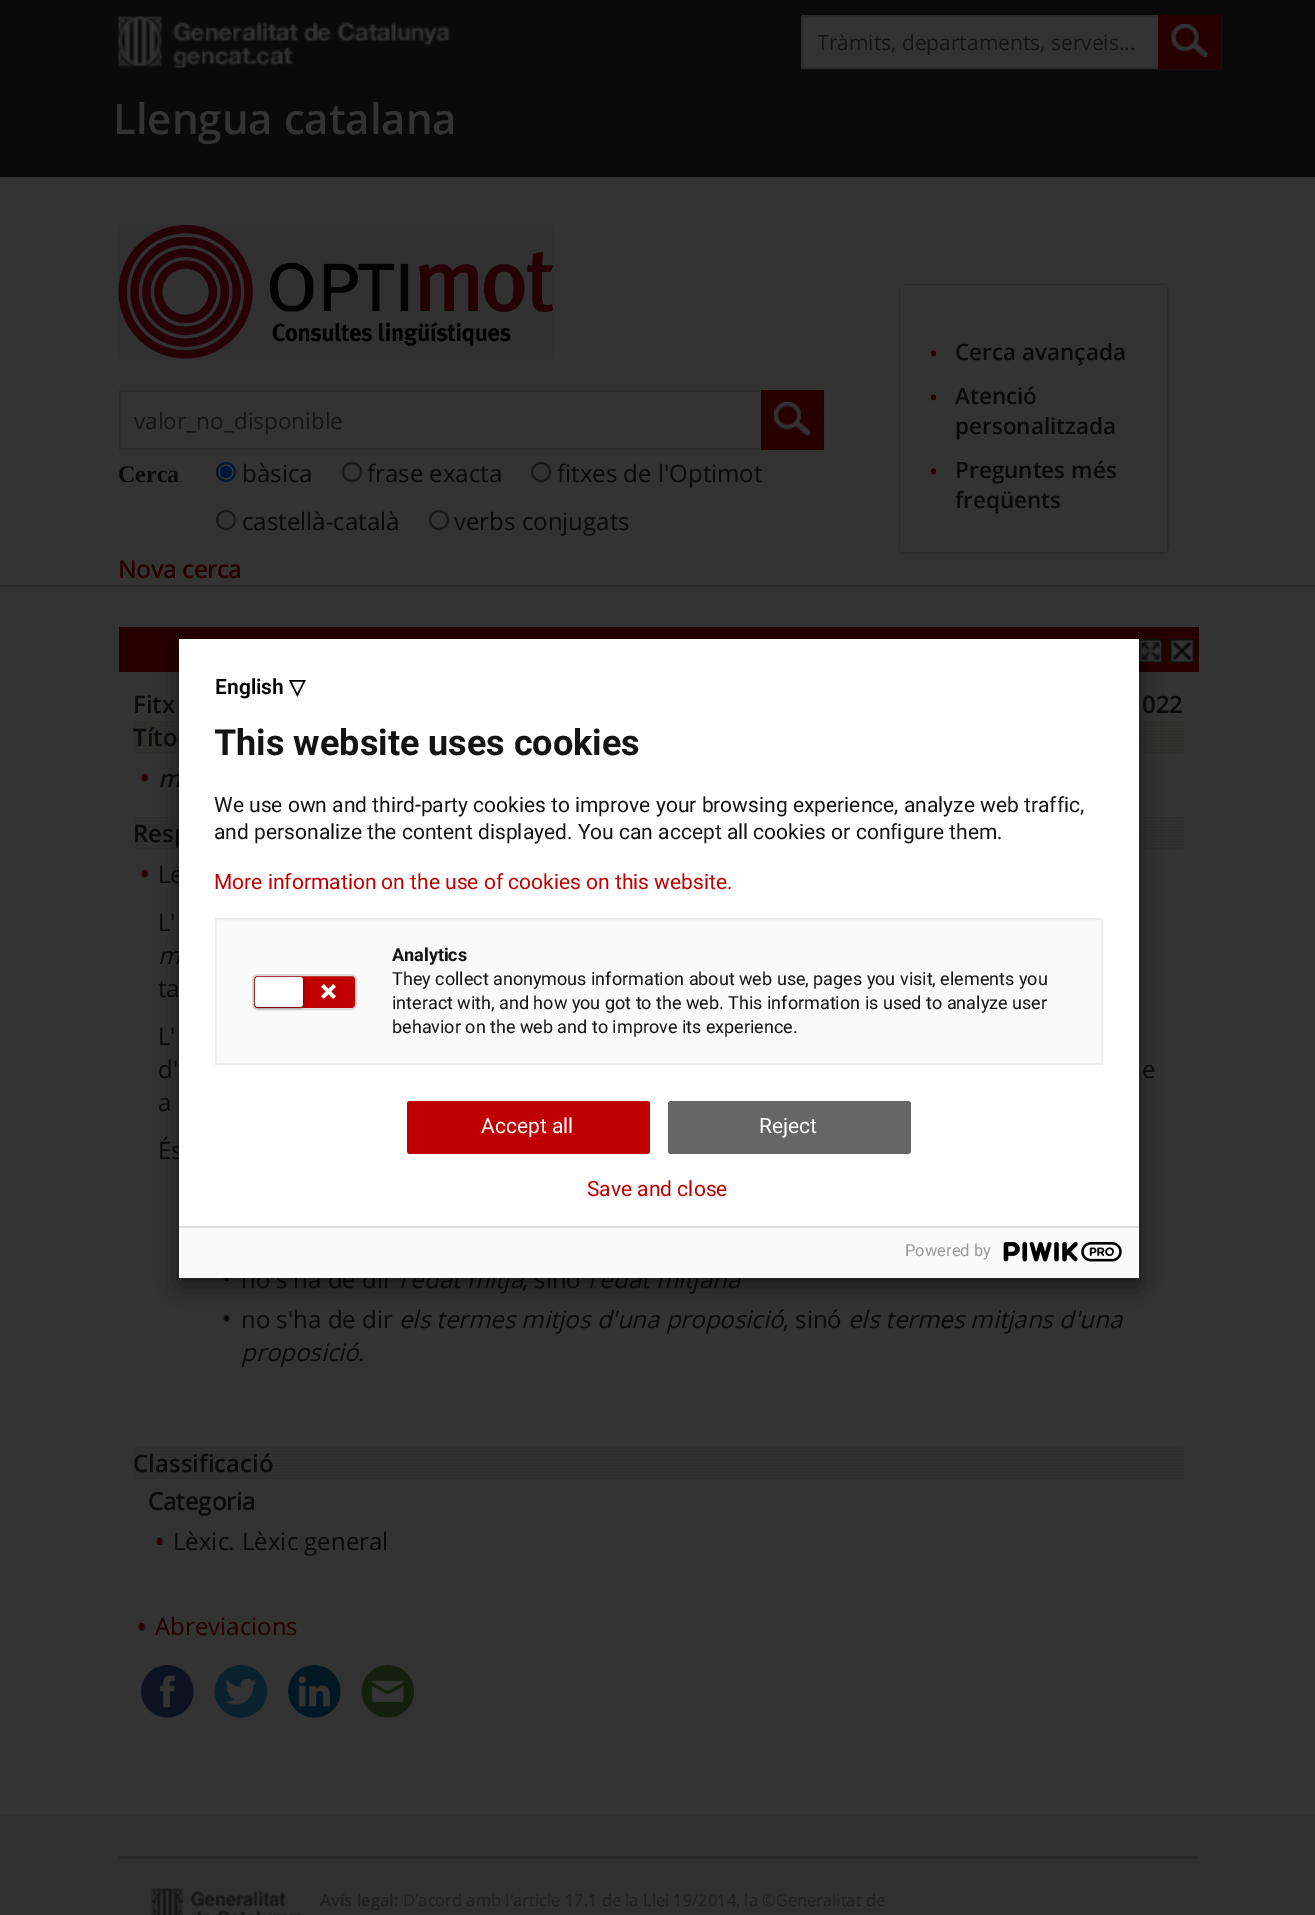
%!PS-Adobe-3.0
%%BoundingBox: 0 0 1315 1915
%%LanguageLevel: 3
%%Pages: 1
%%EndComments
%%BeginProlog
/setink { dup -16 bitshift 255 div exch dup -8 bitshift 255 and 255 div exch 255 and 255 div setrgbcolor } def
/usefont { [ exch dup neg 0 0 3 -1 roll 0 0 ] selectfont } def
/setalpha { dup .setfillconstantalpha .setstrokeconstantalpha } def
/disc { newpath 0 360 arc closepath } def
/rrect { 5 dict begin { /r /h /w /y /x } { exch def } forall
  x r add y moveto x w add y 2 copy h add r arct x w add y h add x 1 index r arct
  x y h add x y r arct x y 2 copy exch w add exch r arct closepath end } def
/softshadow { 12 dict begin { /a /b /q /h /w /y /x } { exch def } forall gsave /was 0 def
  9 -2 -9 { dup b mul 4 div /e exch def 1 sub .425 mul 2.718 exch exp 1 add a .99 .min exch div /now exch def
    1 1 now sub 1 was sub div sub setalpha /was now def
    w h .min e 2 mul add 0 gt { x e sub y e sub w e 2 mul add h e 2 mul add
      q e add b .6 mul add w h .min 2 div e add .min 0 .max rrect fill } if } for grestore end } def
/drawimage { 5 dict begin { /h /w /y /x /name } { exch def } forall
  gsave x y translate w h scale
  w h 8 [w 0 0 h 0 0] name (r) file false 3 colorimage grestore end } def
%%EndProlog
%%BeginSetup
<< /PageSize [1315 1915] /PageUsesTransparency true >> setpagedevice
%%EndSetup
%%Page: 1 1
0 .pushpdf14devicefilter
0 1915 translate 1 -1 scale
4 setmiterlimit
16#333333 setink
0 0 1315 1915 rectfill
16#0A0A0A setink
0 0 1315 177 rectfill
(img1.raw) 118 16 332 52 drawimage
16#333333 setink
803 17 355 50 rectfill
16#2C2C2C setink
2 setlinewidth
802 16 418 52 rectstroke
gsave
818 27 396 29 rectclip
/OpenSans-Regular 21 usefont
16#141414 setink
817 50 moveto (Tràmits, departaments, serveis...) show
grestore
16#260000 setink
1158 15 63 54 rectfill
(img2.raw) 1171 24 37 34 drawimage
/OpenSans-SemiBold 42 usefont
16#333333 setink
113 134 moveto (Llengua catalana) show
16#2C2C2C setink
0 585 1315 2 rectfill
(img3.raw) 118 225 436 134 drawimage
120 391 703 58 rectstroke
/OpenSans-Regular 22.5 usefont
16#141414 setink
134 429 moveto (valor_no_disponible) show
16#260000 setink
761 390 63 60 rectfill
(img4.raw) 774 402 36 34 drawimage
16#2C2C2C setink
900 285 268 268 5 rrect stroke
16#333333 setink
900 285 267 267 rectfill
/OpenSans-Regular 24 usefont
16#260000 setink
929 362 moveto (•) show
/OpenSans-SemiBold 22.5 usefont
16#0A0A0A setink
955 360 moveto (Cerca avançada) show
/OpenSans-Regular 24 usefont
16#260000 setink
929 406 moveto (•) show
/OpenSans-SemiBold 22.5 usefont
16#0A0A0A setink
955 404 moveto (Atenció) show
955 434 moveto (personalitzada) show
/OpenSans-Regular 24 usefont
16#260000 setink
929 480 moveto (•) show
/OpenSans-SemiBold 22.5 usefont
16#0A0A0A setink
955 478 moveto (Preguntes més) show
955 508 moveto (freqüents) show
/LiberationSerif-Bold 24 usefont
118 482 moveto (Cerca) show
16#001733 setink
226 472 9 disc stroke
226 472 6 disc fill
/OpenSans-Regular 24 usefont
16#0A0A0A setink
242 482 moveto (bàsica) show
16#181818 setink
352 472 9 disc stroke
16#0A0A0A setink
367 482 moveto (frase exacta) show
16#181818 setink
541 472 9 disc stroke
16#0A0A0A setink
557 482 moveto (fitxes de l'Optimot) show
16#181818 setink
226 520 9 disc stroke
16#0A0A0A setink
242 530 moveto (castellà-català) show
16#181818 setink
439 520 9 disc stroke
16#0A0A0A setink
454 530 moveto (verbs conjugats) show
/OpenSans-Bold 24 usefont
16#260000 setink
118 578 moveto (Nova cerca) show
119 627 1080 45 rectfill
(img5.raw) 1139 639 24 24 drawimage
(img6.raw) 1170 639 24 24 drawimage
/OpenSans-SemiBold 24 usefont
16#0A0A0A setink
133 713 moveto (Fitx) show
1142 713 moveto (022) show
(img7.raw) 133 721 1051 32 drawimage
133 746 moveto (Títo) show
(img8.raw) 141 774 8 8 drawimage
/OpenSans-SemiBoldItalic 24 usefont
158 787 moveto (m) show
(img9.raw) 133 817 1051 32 drawimage
/OpenSans-SemiBold 24 usefont
133 842 moveto (Resp) show
(img8.raw) 141 870 8 8 drawimage
/OpenSans-Regular 24 usefont
158 883 moveto (Le) show
158 931 moveto (L') show
/OpenSans-Italic 24 usefont
158 964 moveto (m) show
/OpenSans-Regular 24 usefont
[
    [(ta) 158 997]
    [(L') 158 1045]
    [(d') 158 1078]
    [(e) 1142 1078]
    [(a) 158 1111]
    [(És) 158 1159]
] { aload pop moveto show } forall
(img10.raw) 223 1278 7 3 drawimage
241 1288 moveto (no s'ha de dir) show
/OpenSans-Italic 24 usefont
399 1288 moveto (l'edat mitja) show
/OpenSans-Regular 24 usefont
522 1288 moveto (, sinó) show
/OpenSans-Italic 24 usefont
588 1288 moveto (l'edat mitjana) show
(img11.raw) 223 1315 7 7 drawimage
/OpenSans-Regular 24 usefont
241 1328 moveto (no s'ha de dir) show
/OpenSans-Italic 24 usefont
399 1328 moveto (els termes mitjos d'una proposició) show
/OpenSans-Regular 24 usefont
783 1328 moveto (, sinó) show
/OpenSans-Italic 24 usefont
848 1328 moveto (els termes mitjans d'una) show
241 1361 moveto (proposició) show
/OpenSans-Regular 24 usefont
358 1361 moveto (.) show
(img9.raw) 133 1447 1051 32 drawimage
/OpenSans-SemiBold 24 usefont
133 1472 moveto (Classificació) show
/OpenSans-Bold 24 usefont
148 1510 moveto (Categoria) show
(img12.raw) 156 1537 8 8 drawimage
/OpenSans-Regular 24 usefont
[
    [(Lèxic) 173 1550]
    [(.) 228 1550]
    [(Lèxic general) 242 1550]
] { aload pop moveto show } forall
(img8.raw) 138 1623 8 8 drawimage
16#260000 setink
155 1635 moveto (Abreviacions) show
(img13.raw) 141 1665 53 53 drawimage
(img14.raw) 214 1665 53 53 drawimage
(img15.raw) 288 1665 53 53 drawimage
(img16.raw) 361 1665 53 53 drawimage
16#000000 setink
179 647 960 639 0 11 0.5 softshadow
16#FFFFFF setink
179 639 960 587 rectfill
/Roboto-SemiBold 21 usefont
16#000000 setink
215 694 moveto (English) show
/DejaVuSans-Bold 21 usefont
289 694 moveto (▽) show
gsave
215 675 888 390 rectclip
/Roboto-Bold 36 usefont
16#141414 setink
214 755 moveto (This website uses cookies) show
grestore
/Roboto-Regular 21 usefont
16#141414 setink
214 812 moveto (We use own and third-party cookies to improve your browsing experience, analyze web traffic,) show
214 839 moveto (and personalize the content displayed. You can accept all cookies or configure them.) show
16#C00000 setink
214 889 moveto (More information on the use of cookies on this website.) show
16#FAFAFA setink
216 919 moveto 1102 919 lineto 1102 1064 lineto 216 1064 lineto closepath gsave fill grestore
16#EEEEEE setink
stroke
16#C00000 setink
253 975 103 34 4 rrect gsave fill grestore
16#DDDDDD setink
stroke
16#000000 setink
255 978 48 30 3 1.5 0.5 softshadow
16#FFFFFF setink
255 977 48 30 3 rrect fill
(img17.raw) 321 984 15 15 drawimage
/Roboto-Bold 18 usefont
16#141414 setink
392 961 moveto (Analytics) show
/Roboto-Regular 18 usefont
[
    [(They collect anonymous information about web use, pages you visit, elements you) 392 985]
    [(interact with, and how you got to the web. This information is used to analyze user) 392 1009]
    [(behavior on the web and to improve its experience.) 392 1033]
] { aload pop moveto show } forall
16#C00000 setink
407 1101 243 53 3 rrect fill
/Roboto-Regular 21 usefont
16#FFFFFF setink
481 1133 moveto (Accept all) show
16#666666 setink
668 1101 243 53 3 rrect fill
16#FFFFFF setink
759 1133 moveto (Reject) show
16#C00000 setink
587 1196 moveto (Save and close) show
16#FAFAFA setink
179 1228 960 50 rectfill
16#DDDDDD setink
179 1226 960 2 rectfill
/Roboto-Regular 16.5 usefont
16#999999 setink
905 1256 moveto (Powered by) show
(img18.raw) 1003 1242 119 20 drawimage
16#303030 setink
0 1815 1315 100 rectfill
16#292929 setink
119 1856 1080 3 rectfill
(img19.raw) 151 1888 151 27 drawimage
/OpenSans-SemiBold 16.5 usefont
16#1F1F1F setink
320 1906 moveto (Avís legal) show
/OpenSans-Regular 16.5 usefont
394 1906 moveto (: D'acord amb l'article 17.1 de la Llei 19/2014, la ©Generalitat de) show
.poppdf14devicefilter showpage
%%EOF
